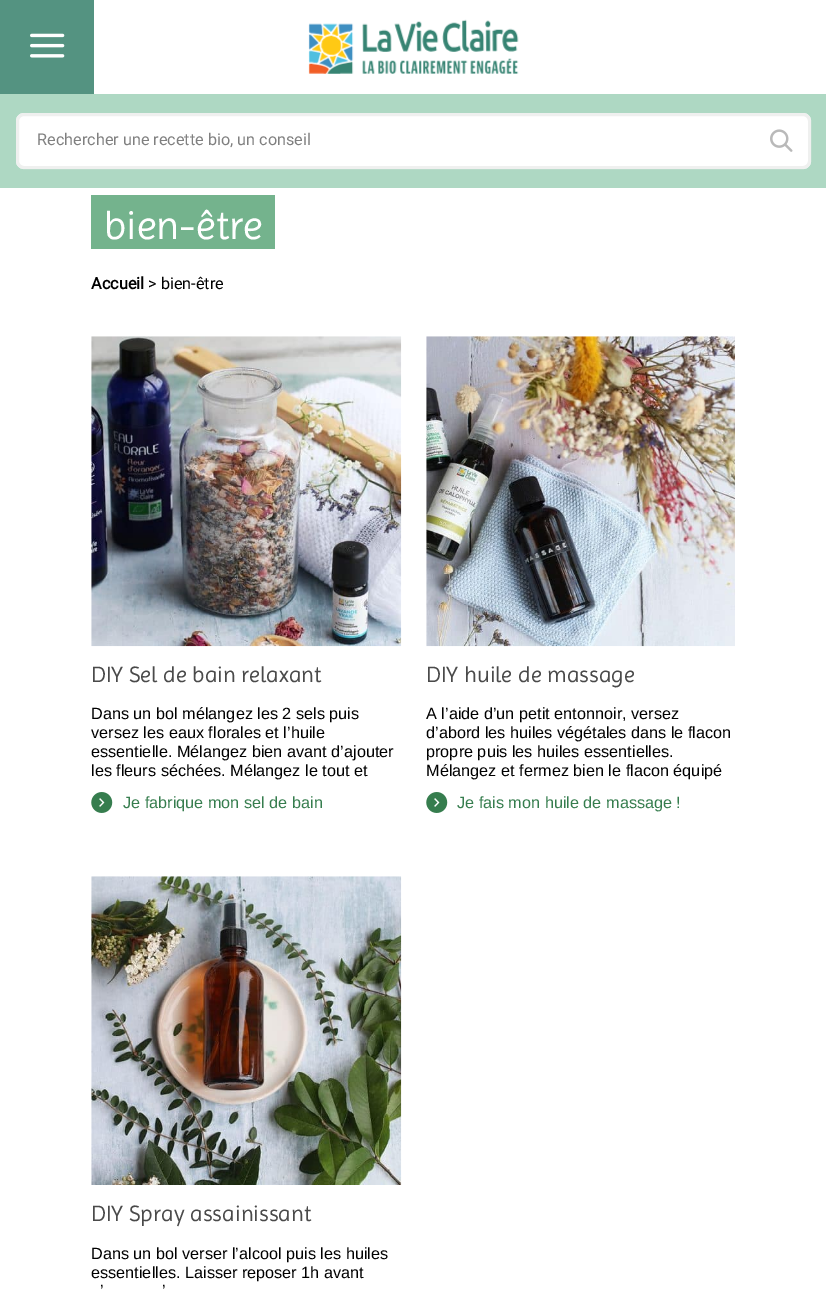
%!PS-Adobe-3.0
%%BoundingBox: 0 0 826 1290
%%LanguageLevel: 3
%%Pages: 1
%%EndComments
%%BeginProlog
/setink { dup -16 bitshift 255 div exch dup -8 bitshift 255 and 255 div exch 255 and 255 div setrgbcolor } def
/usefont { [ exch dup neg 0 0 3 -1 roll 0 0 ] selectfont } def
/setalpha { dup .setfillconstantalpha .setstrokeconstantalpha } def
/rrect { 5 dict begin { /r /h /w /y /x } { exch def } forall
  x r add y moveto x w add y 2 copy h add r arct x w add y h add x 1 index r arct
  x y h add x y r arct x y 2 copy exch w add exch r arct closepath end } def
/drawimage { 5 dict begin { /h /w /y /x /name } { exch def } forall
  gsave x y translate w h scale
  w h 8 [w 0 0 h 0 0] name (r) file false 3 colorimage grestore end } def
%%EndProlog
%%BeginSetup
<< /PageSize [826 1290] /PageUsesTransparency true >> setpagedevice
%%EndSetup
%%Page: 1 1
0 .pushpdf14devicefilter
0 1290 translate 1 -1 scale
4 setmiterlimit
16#FFFFFF setink
0 0 826 1290 rectfill
16#549381 setink
0 0 94 94 rectfill
(img1.raw) 30 33 35 25 drawimage
(img2.raw) 308 19 211 55 drawimage
16#AED8C3 setink
0 94 826 94 rectfill
16#FFFFFF setink
16 113 795 56 8 rrect fill
0.7 setalpha
16#E8E9E8 setink
3 setlinewidth
17.5 114.5 792 53 6.5 rrect stroke
/Roboto-Regular 16.25 usefont
1 setalpha
16#808080 setink
37 145 moveto (Rechercher une recette bio, un conseil) show
(img3.raw) 770 129 23 23 drawimage
16#74B38D setink
91 195 184 54 rectfill
/Imprima-Regular 40.5 usefont
16#FFFFFF setink
104 239 moveto (bien-être) show
/Roboto-Bold 16.25 usefont
16#000000 setink
91 289 moveto (Accueil) show
/Roboto-Regular 16.25 usefont
148 289 moveto (> bien-être) show
(img4.raw) 91 336 311 311 drawimage
/Imprima-Regular 22.5 usefont
16#4A4A4A setink
91 682 moveto (DIY Sel de bain relaxant) show
/LiberationSans-Regular 16.25 usefont
16#000000 setink
[
    [(Dans un bol mélangez les 2 sels puis) 91 719]
    [(versez les eaux florales et l’huile) 91 738]
    [(essentielle. Mélangez bien avant d’ajouter) 91 757]
    [(les fleurs séchées. Mélangez le tout et) 91 776]
] { aload pop moveto show } forall
(img5.raw) 91 792 22 21 drawimage
16#367D4E setink
123 808 moveto (Je fabrique mon sel de bain) show
(img6.raw) 426 336 309 311 drawimage
/Imprima-Regular 22.5 usefont
16#4A4A4A setink
426 682 moveto (DIY huile de massage) show
/LiberationSans-Regular 16.25 usefont
16#000000 setink
[
    [(A l’aide d’un petit entonnoir, versez) 426 719]
    [(d’abord les huiles végétales dans le flacon) 426 738]
    [(propre puis les huiles essentielles.) 426 757]
    [(Mélangez et fermez bien le flacon équipé) 426 776]
] { aload pop moveto show } forall
(img5.raw) 426 792 22 21 drawimage
16#367D4E setink
457 808 moveto (Je fais mon huile de massage !) show
(img7.raw) 91 876 311 309 drawimage
/Imprima-Regular 22.5 usefont
16#4A4A4A setink
91 1221 moveto (DIY Spray assainissant) show
/LiberationSans-Regular 16.25 usefont
16#000000 setink
[
    [(Dans un bol verser l’alcool puis les huiles) 91 1259]
    [(essentielles. Laisser reposer 1h avant) 91 1278]
    [(’) 100 1296]
    [(’) 162 1296]
] { aload pop moveto show } forall
.poppdf14devicefilter showpage
%%EOF
